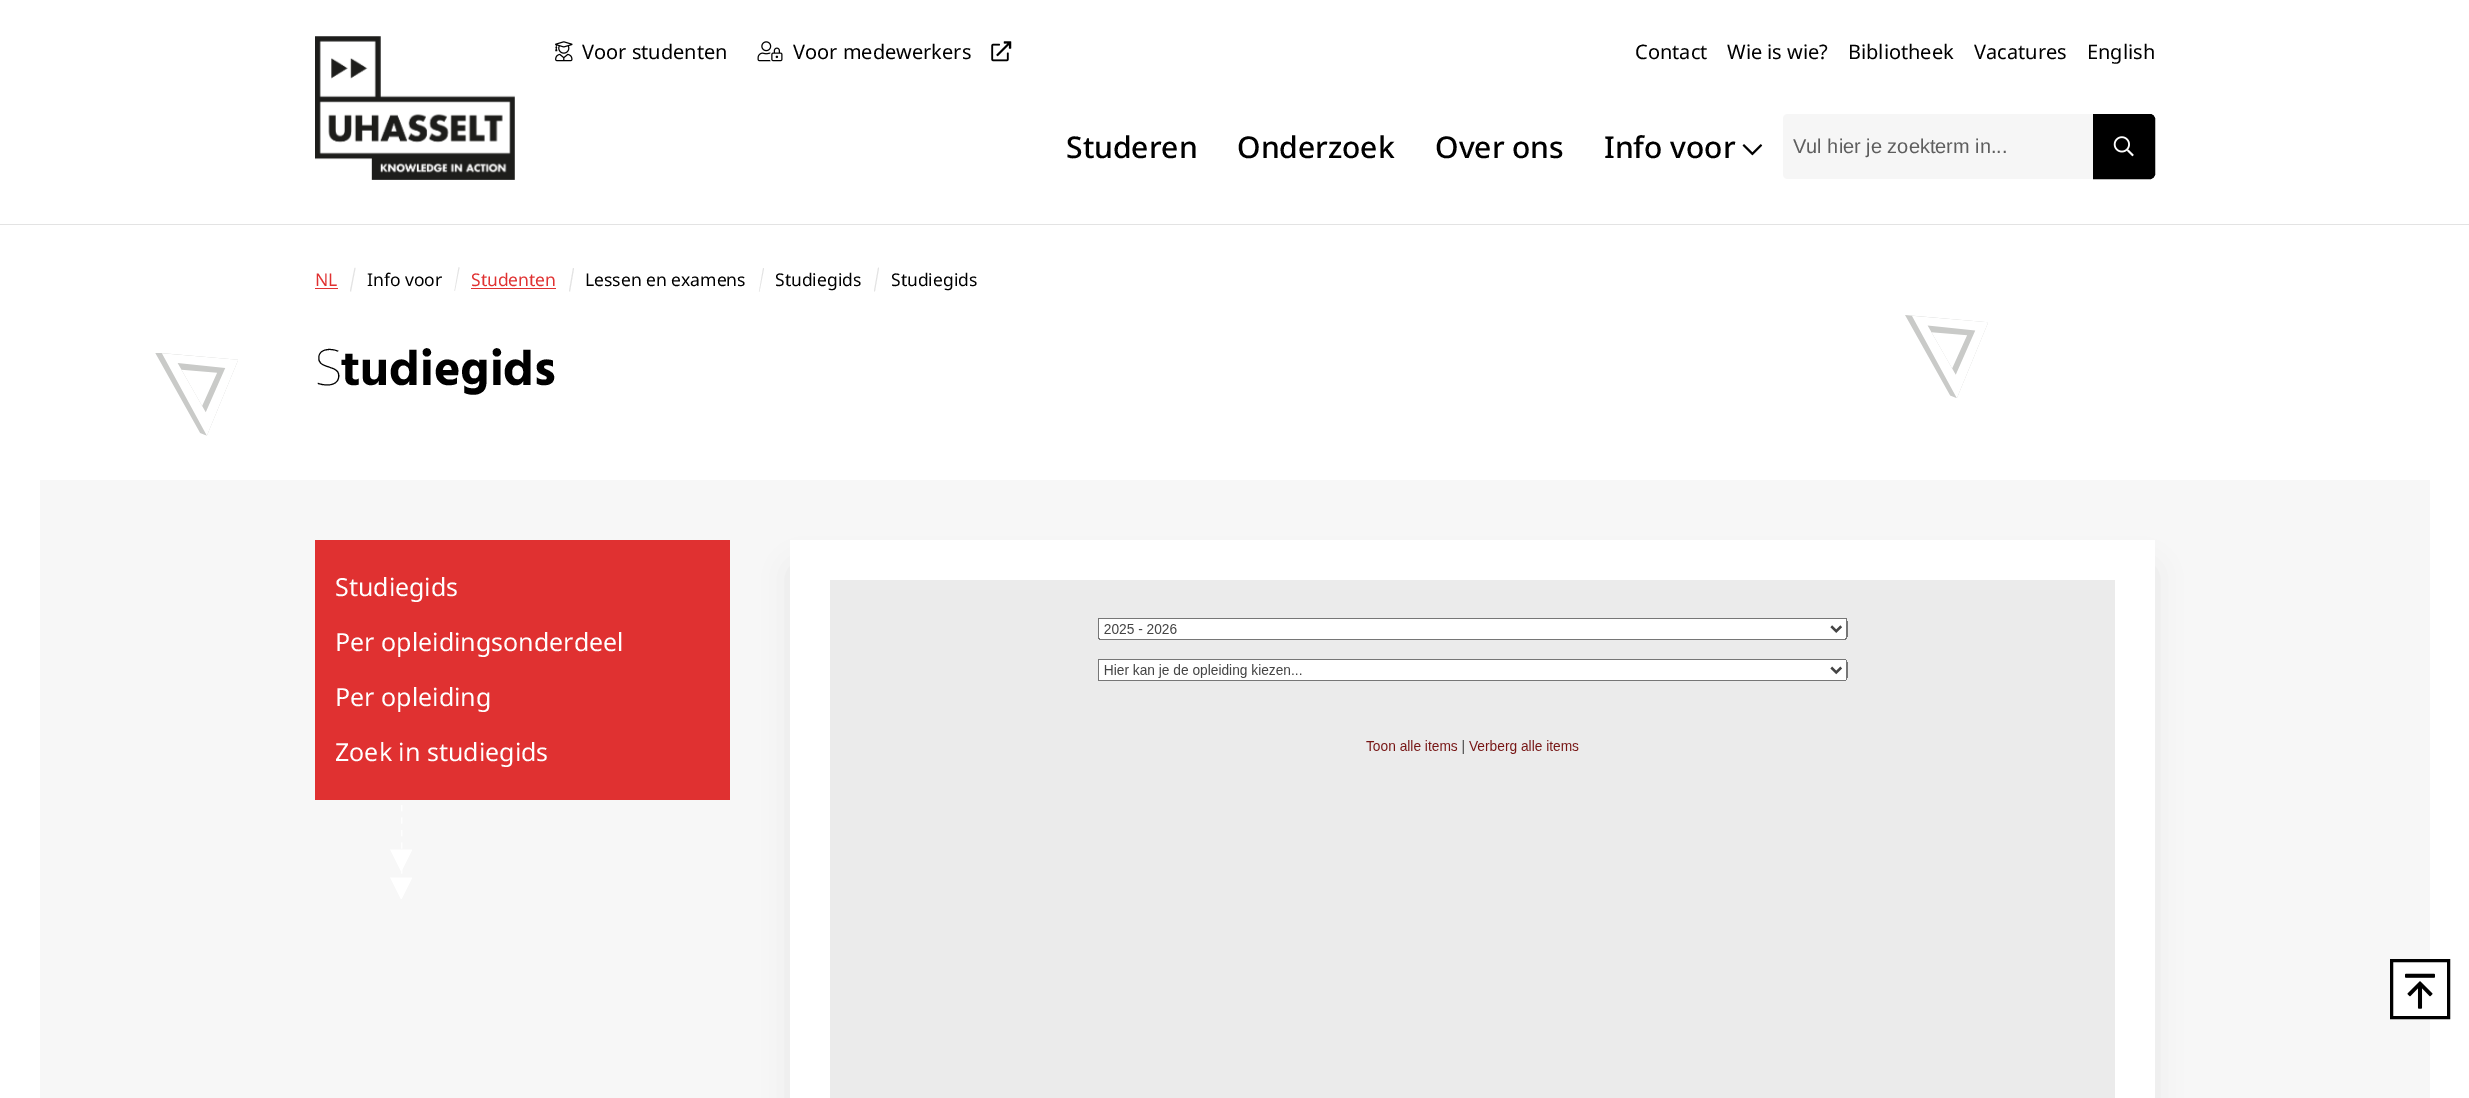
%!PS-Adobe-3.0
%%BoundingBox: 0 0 2469 1098
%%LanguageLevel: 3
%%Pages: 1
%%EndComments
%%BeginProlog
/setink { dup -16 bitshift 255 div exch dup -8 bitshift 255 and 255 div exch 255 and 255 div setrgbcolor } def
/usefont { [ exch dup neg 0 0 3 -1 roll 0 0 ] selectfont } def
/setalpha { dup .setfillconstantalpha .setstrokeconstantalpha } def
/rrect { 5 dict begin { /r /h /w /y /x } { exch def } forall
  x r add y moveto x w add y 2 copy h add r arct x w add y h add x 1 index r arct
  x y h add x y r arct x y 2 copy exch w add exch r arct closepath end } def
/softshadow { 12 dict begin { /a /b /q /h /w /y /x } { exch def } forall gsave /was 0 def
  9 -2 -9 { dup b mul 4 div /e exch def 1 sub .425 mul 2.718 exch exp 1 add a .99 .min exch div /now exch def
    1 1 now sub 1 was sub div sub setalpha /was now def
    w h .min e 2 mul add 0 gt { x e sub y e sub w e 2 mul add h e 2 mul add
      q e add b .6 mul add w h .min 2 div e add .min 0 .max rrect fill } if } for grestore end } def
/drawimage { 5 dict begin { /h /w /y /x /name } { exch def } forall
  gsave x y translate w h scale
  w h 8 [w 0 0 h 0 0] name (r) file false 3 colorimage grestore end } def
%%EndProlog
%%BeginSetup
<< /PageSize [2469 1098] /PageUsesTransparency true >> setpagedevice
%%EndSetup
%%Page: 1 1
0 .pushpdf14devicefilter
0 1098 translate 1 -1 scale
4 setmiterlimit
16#FFFFFF setink
0 0 2469 1098 rectfill
16#E3E3E3 setink
0 224 2469 1 rectfill
(img1.raw) 315 36 200 144 drawimage
(img2.raw) 555 41 18 21 drawimage
/NotoSans-Regular 20 usefont
16#000000 setink
582 59 moveto (Voor studenten) show
(img3.raw) 757 41 26 21 drawimage
793 59 moveto (Voor medewerkers) show
(img4.raw) 991 41 21 21 drawimage
[
    [(Contact) 1635 59]
    [(Wie is wie?) 1727 59]
    [(Bibliotheek) 1848 59]
    [(Vacatures) 1974 59]
    [(English) 2087 59]
] { aload pop moveto show } forall
/NotoSans-Medium 30 usefont
[
    [(Studeren) 1066 158]
    [(Onderzoek) 1237 158]
    [(Over ons) 1435 158]
    [(Info voor) 1604 158]
] { aload pop moveto show } forall
(img5.raw) 1742 144 21 12 drawimage
16#F6F6F6 setink
1788 114 moveto 2093 114 lineto 2093 179 lineto 1788 179 lineto 1785 179 1783 177 1783 174 curveto 1783 119 lineto 1783 116 1785 114 1788 114 curveto closepath fill
/LiberationSans-Regular 20 usefont
16#5E5E5E setink
1793 153 moveto (Vul hier je zoekterm in...) show
16#000000 setink
2093.5 114.5 moveto 2150 114.5 lineto 2152.5 114.5 2154.5 116.5 2154.5 119 curveto 2154.5 174 lineto 2154.5 176.5 2152.5 178.5 2150 178.5 curveto 2093.5 178.5 lineto closepath gsave fill grestore
stroke
(img6.raw) 2113 136 21 21 drawimage
16#F7F7F7 setink
40 480 2390 618 rectfill
(img7.raw) 155 353 83 83 drawimage
/NotoSans-Regular 17.5 usefont
16#E03131 setink
315 286 moveto (NL) show
315 288 23 1 rectfill
16#E3E3E3 setink
351 291.5 moveto 351 291.5 350 291.5 350 291 curveto 354.5 268 lineto 354.5 267.5 355.5 268 355.5 268 curveto closepath fill
16#000000 setink
367 286 moveto (Info voor) show
16#E3E3E3 setink
455 290.5 moveto 455 291 454 291 454.5 290.5 curveto 458.5 267.5 lineto 458.5 267 459.5 267.5 459.5 267.5 curveto closepath fill
16#E03131 setink
471 286 moveto (Studenten) show
471 288 85 1 rectfill
16#E3E3E3 setink
570 291.5 moveto 570 291.5 569 291.5 569 291 curveto 573 268 lineto 573 268 574 268 574 268.5 curveto closepath fill
16#000000 setink
585 286 moveto (Lessen en examens) show
16#E3E3E3 setink
759.5 291.5 moveto 759.5 292 758.5 291.5 759 291.5 curveto 763 268.5 lineto 763 268 764 268 764 268.5 curveto closepath fill
16#000000 setink
775 286 moveto (Studiegids) show
16#E3E3E3 setink
875 291 moveto 875 291.5 874 291.5 874 291 curveto 878 268 lineto 878.5 267.5 879 267.5 879 268 curveto closepath fill
16#000000 setink
891 286 moveto (Studiegids) show
/NotoSans-Thin 50 usefont
315 385 moveto (S) show
/Hind-Bold 50 usefont
341 385 moveto (tudiegids) show
(img8.raw) 1905 315 83 83 drawimage
16#E03131 setink
315 540 415 260 rectfill
/NotoSans-Regular 25 usefont
16#FFFFFF setink
[
    [(Studiegids) 335 596]
    [(Per opleidingsonderdeel) 335 651]
    [(Per opleiding) 335 706]
    [(Zoek in studiegids) 335 761]
] { aload pop moveto show } forall
(img9.raw) 390 805 22 94 drawimage
16#000000 setink
796 571 1353 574 0 15.5 0.1 softshadow
16#FFFFFF setink
790 540 1365 558 rectfill
(img10.raw) 830 580 1285 518 drawimage
2393 962 37 54 rectfill
16#000000 setink
3 setlinewidth
2391.5 960.5 57 57 rectstroke
(img11.raw) 2405 973 30 36 drawimage
.poppdf14devicefilter showpage
%%EOF
